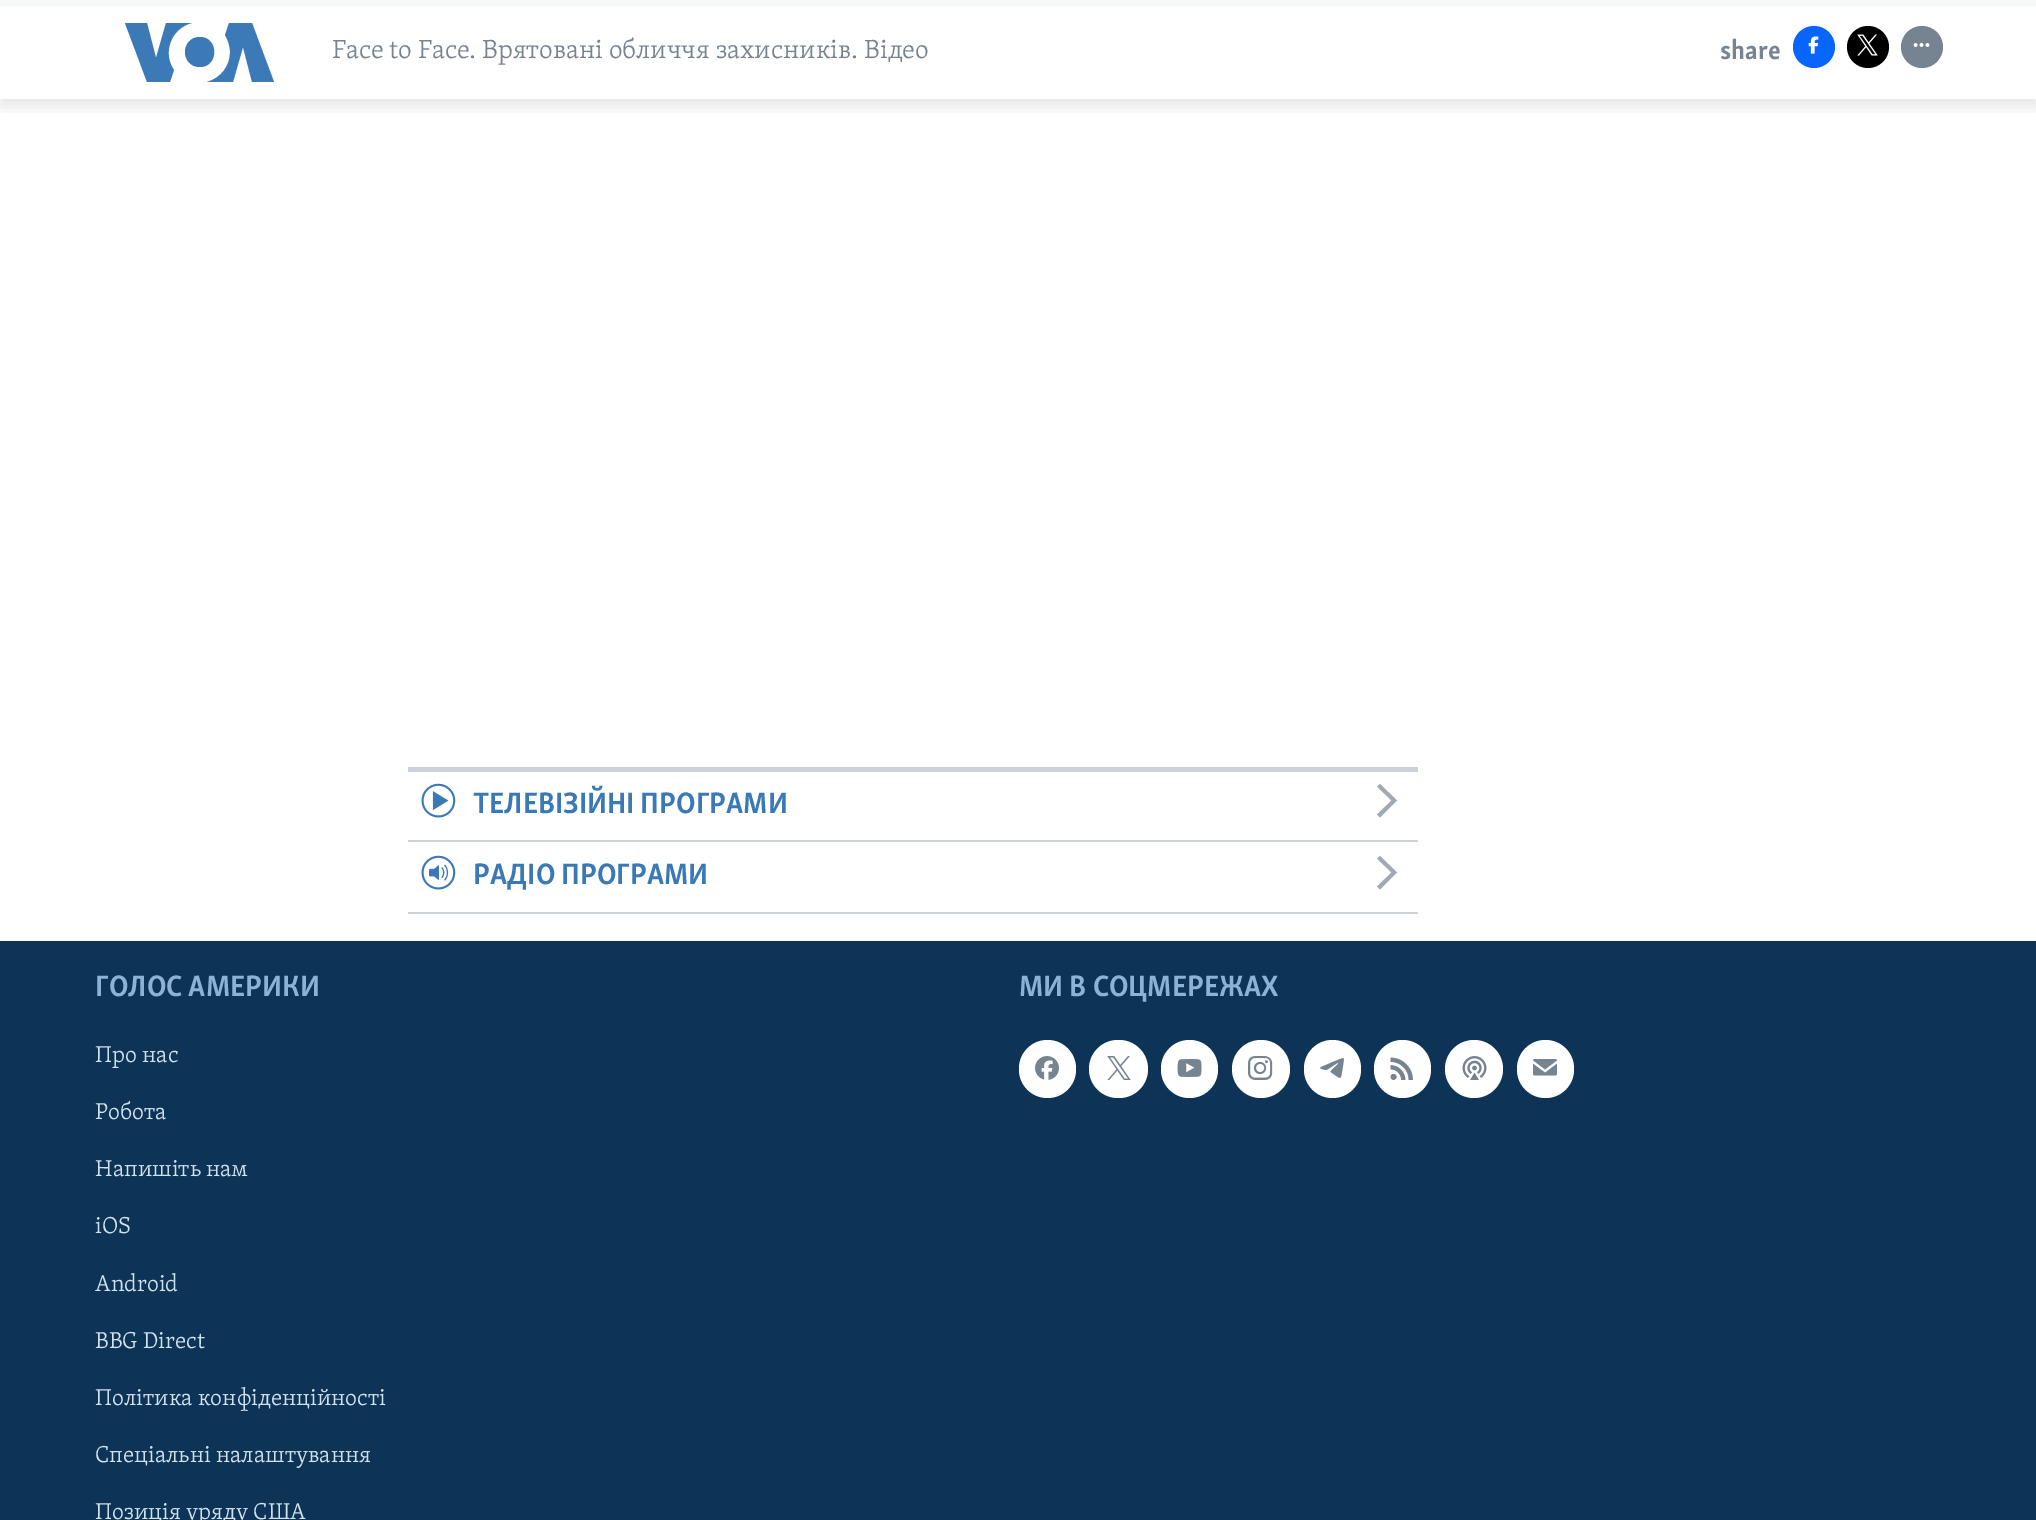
%!PS-Adobe-3.0
%%BoundingBox: 0 0 2036 1520
%%LanguageLevel: 3
%%Pages: 1
%%EndComments
%%BeginProlog
/setink { dup -16 bitshift 255 div exch dup -8 bitshift 255 and 255 div exch 255 and 255 div setrgbcolor } def
/usefont { [ exch dup neg 0 0 3 -1 roll 0 0 ] selectfont } def
/setalpha { dup .setfillconstantalpha .setstrokeconstantalpha } def
/disc { newpath 0 360 arc closepath } def
/rrect { 5 dict begin { /r /h /w /y /x } { exch def } forall
  x r add y moveto x w add y 2 copy h add r arct x w add y h add x 1 index r arct
  x y h add x y r arct x y 2 copy exch w add exch r arct closepath end } def
/softshadow { 12 dict begin { /a /b /q /h /w /y /x } { exch def } forall gsave /was 0 def
  9 -2 -9 { dup b mul 4 div /e exch def 1 sub .425 mul 2.718 exch exp 1 add a .99 .min exch div /now exch def
    1 1 now sub 1 was sub div sub setalpha /was now def
    w h .min e 2 mul add 0 gt { x e sub y e sub w e 2 mul add h e 2 mul add
      q e add b .6 mul add w h .min 2 div e add .min 0 .max rrect fill } if } for grestore end } def
/drawimage { 5 dict begin { /h /w /y /x /name } { exch def } forall
  gsave x y translate w h scale
  w h 8 [w 0 0 h 0 0] name (r) file false 3 colorimage grestore end } def
%%EndProlog
%%BeginSetup
<< /PageSize [2036 1520] /PageUsesTransparency true >> setpagedevice
%%EndSetup
%%Page: 1 1
0 .pushpdf14devicefilter
0 1520 translate 1 -1 scale
4 setmiterlimit
16#FFFFFF setink
0 0 2036 1520 rectfill
gsave
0 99 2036 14 rectclip
16#000000 setink
0 8 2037 99 0 7.5 0.1 softshadow
grestore
16#F6F7F8 setink
0 0 2036 6 rectfill
16#3B79B7 setink
174 70 moveto 170 82 lineto 147 82 lineto 125 23 lineto 147 23 lineto 156 58 lineto 166 23 lineto 192 23 lineto 171 28 162 53 174 70 curveto closepath 200 37 moveto 180 37 180 67 200 67 curveto 219 67 219 37 200 37 curveto closepath 230 52 moveto 230 66 221 78 207 82 curveto 233 82 lineto 243 47 lineto 252 82 lineto 274 82 lineto 252 23 lineto 229 23 lineto 225 35 lineto 228 40 230 46 230 52 curveto closepath fill
/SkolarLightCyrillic-Light 27 usefont
16#768492 setink
332 58 moveto (Face to Face. Врятовані обличчя захисників. Відео) show
/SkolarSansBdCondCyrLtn-Bold 27 usefont
1720 59 moveto (share) show
16#0866FF setink
1814 47 21 disc fill
(img1.raw) 1808 36 11 18 drawimage
16#000000 setink
1868 47 21 disc fill
(img2.raw) 1857 34 21 22 drawimage
16#768492 setink
1922 47 21 disc fill
(img3.raw) 1913 43 17 4 drawimage
16#CBD1D6 setink
408 767 1010 5 rectfill
408 840 1010 2 rectfill
(img4.raw) 421 783 35 35 drawimage
/SkolarSansBdCondCyrLtn-Bold 30.4 usefont
16#3A79B7 setink
473 813 moveto (ТЕЛЕВІЗІЙНІ ПРОГРАМИ) show
16#A1AAB4 setink
1380 817.5 moveto 1397 800.5 lineto 1380 784 lineto 1377 786.5 lineto 1391.5 800.5 lineto 1377 814.5 lineto closepath fill
16#CBD1D6 setink
408 912 1010 2 rectfill
(img5.raw) 421 855 35 35 drawimage
16#3A79B7 setink
473 884 moveto (РАДІО ПРОГРАМИ) show
16#A1AAB4 setink
1380 889.5 moveto 1397 872.5 lineto 1380 856 lineto 1377 858.5 lineto 1391.5 872.5 lineto 1377 886.5 lineto closepath fill
16#0D3456 setink
0 941 2036 579 rectfill
16#8DB3D4 setink
95 996 moveto (ГОЛОС АМЕРИКИ) show
/SkolarLightCyrillic-Light 23.6 usefont
16#D1E1EE setink
[
    [(Про нас) 95 1062]
    [(Робота) 95 1119]
    [(Напишіть нам) 95 1176]
    [(iOS) 95 1233]
    [(Android) 95 1291]
    [(BBG Direct) 95 1348]
    [(Політика конфіденційності) 95 1405]
    [(Спеціальні налаштування) 95 1462]
    [(Позиція уряду США) 95 1519]
] { aload pop moveto show } forall
/SkolarSansBdCondCyrLtn-Bold 30.4 usefont
16#8DB3D4 setink
1019 996 moveto (МИ В СОЦМЕРЕЖАХ) show
16#FFFFFF setink
1019 1040 57 58 28.5 rrect fill
(img6.raw) 1035 1056 24 24 drawimage
1089 1040 59 58 29 rrect fill
(img7.raw) 1107 1056 24 24 drawimage
1161 1040 57 58 28.5 rrect fill
(img8.raw) 1177 1059 25 18 drawimage
1261 1069 29 disc fill
(img9.raw) 1248 1056 25 24 drawimage
1304 1040 57 58 28.5 rrect fill
(img10.raw) 1320 1058 24 20 drawimage
1374 1040 57 58 28.5 rrect fill
(img11.raw) 1390 1057 23 23 drawimage
1474 1069 29 disc fill
(img12.raw) 1462 1056 25 24 drawimage
1517 1040 57 58 28.5 rrect fill
(img13.raw) 1533 1059 24 17 drawimage
.poppdf14devicefilter showpage
%%EOF
